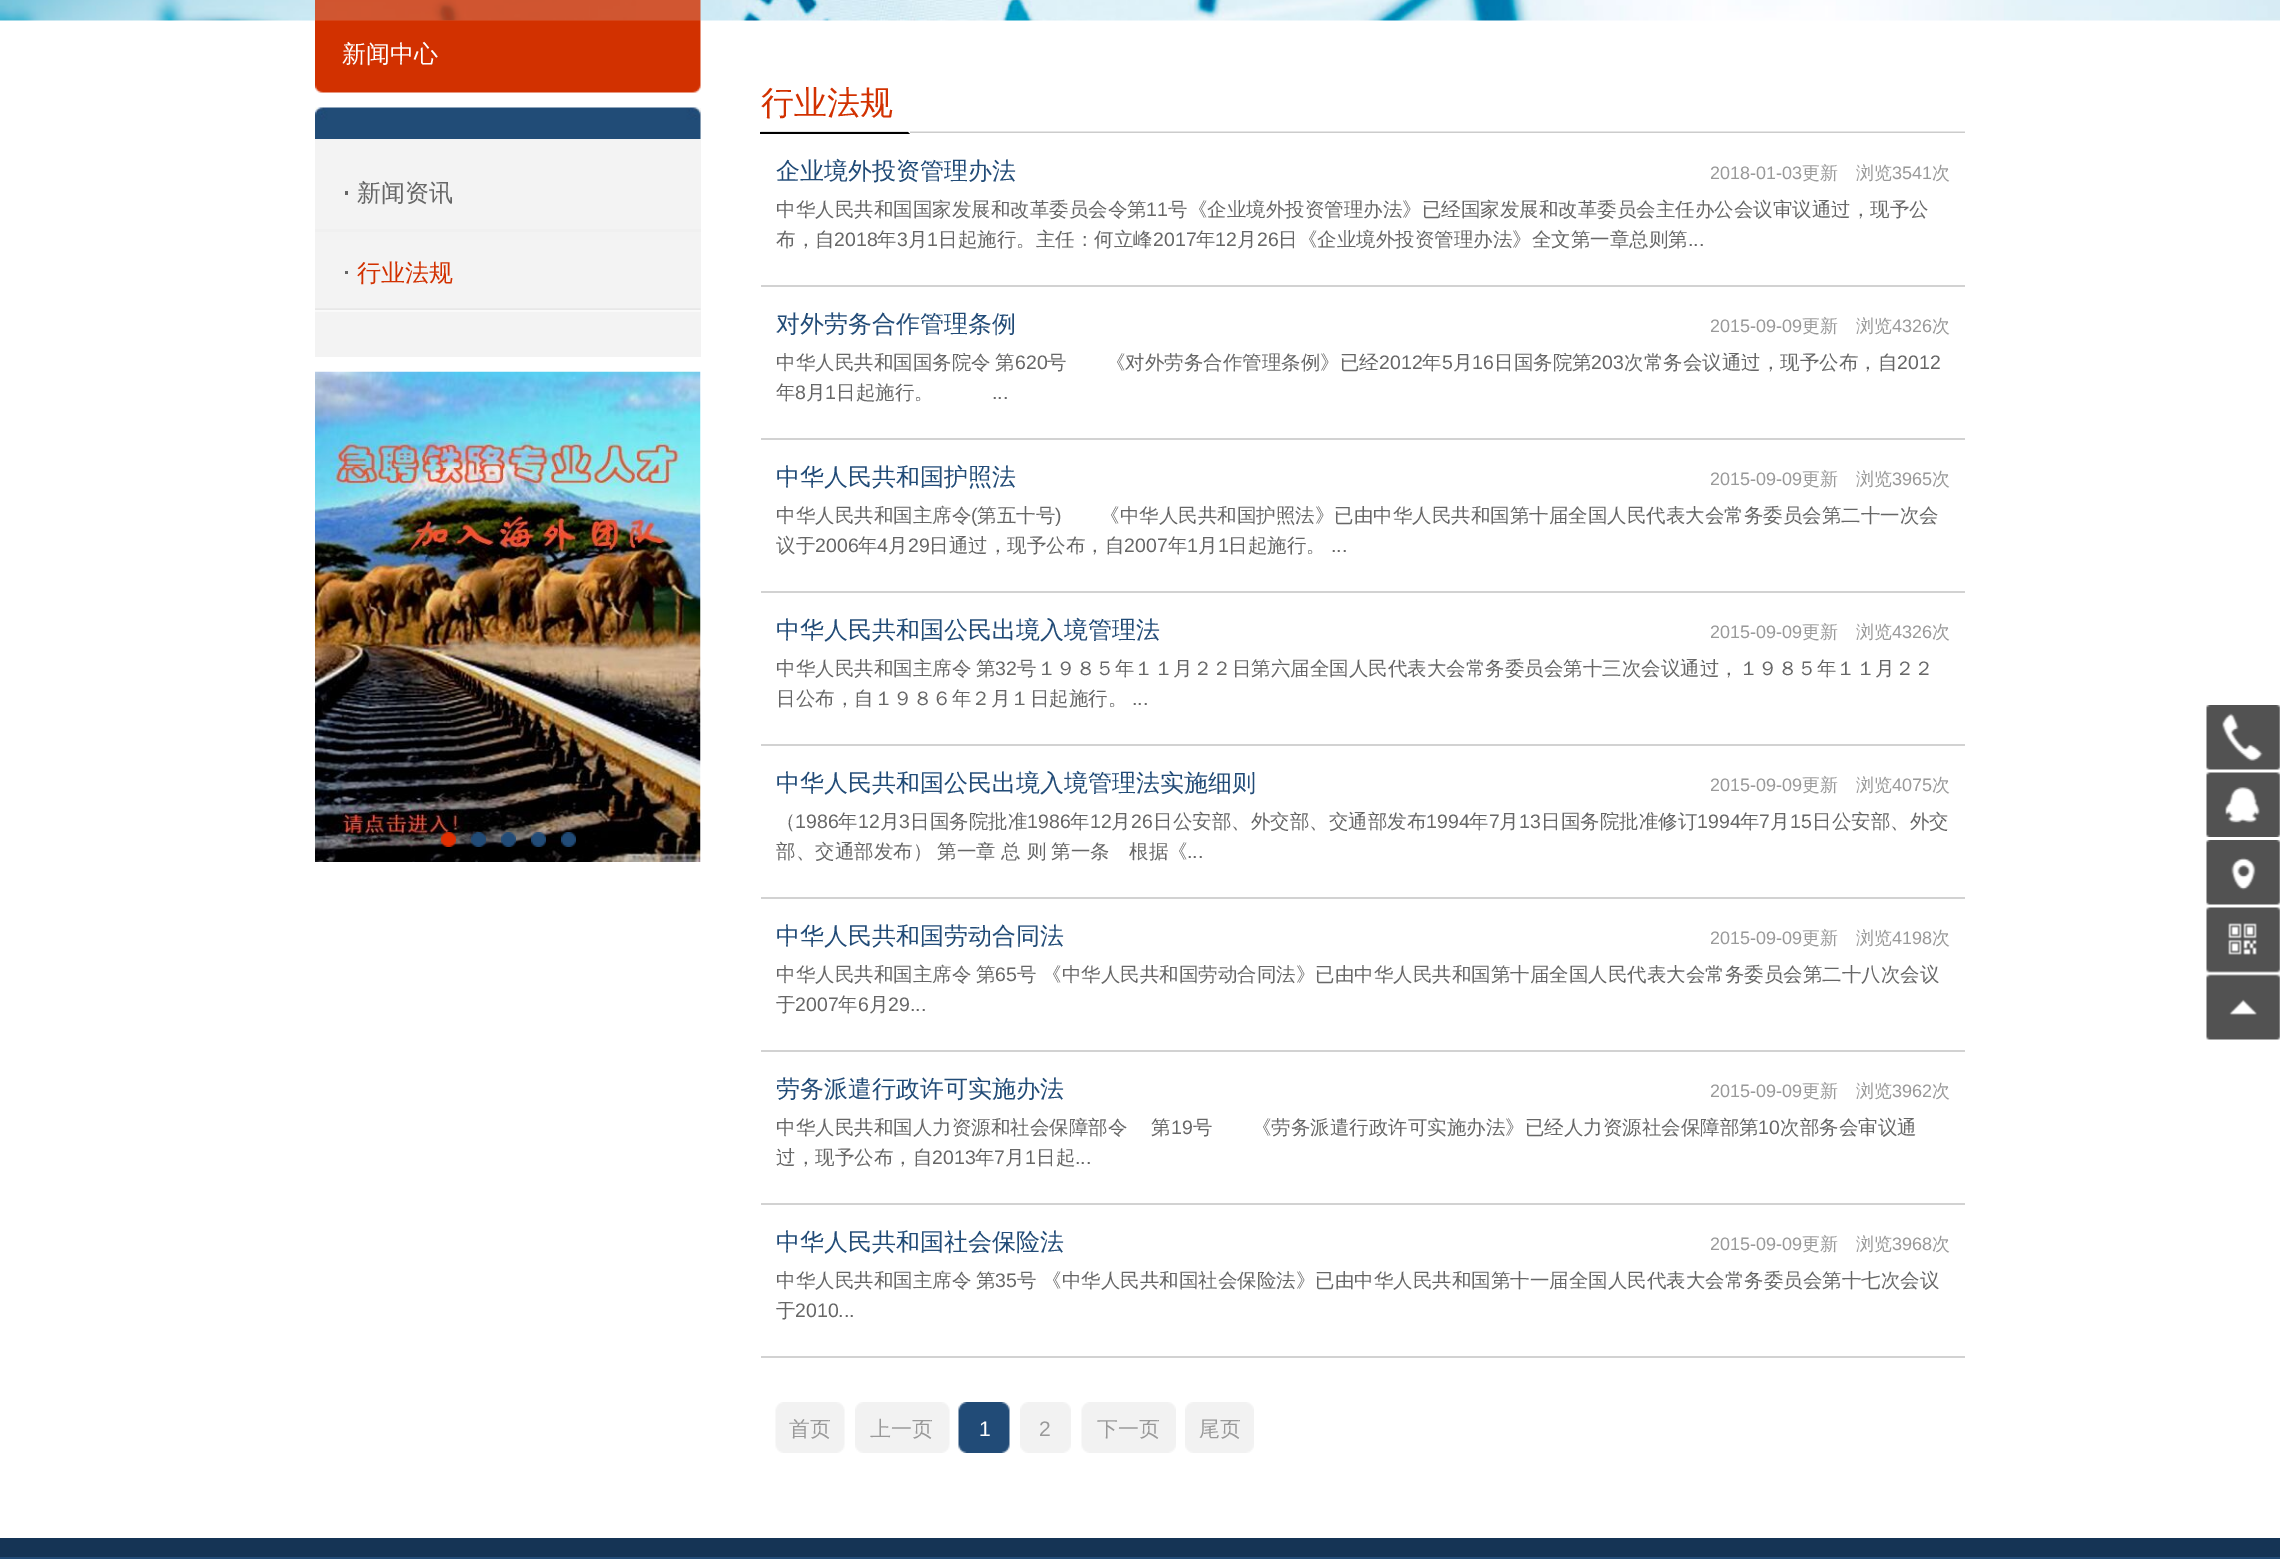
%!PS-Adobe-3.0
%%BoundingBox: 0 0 2280 1559
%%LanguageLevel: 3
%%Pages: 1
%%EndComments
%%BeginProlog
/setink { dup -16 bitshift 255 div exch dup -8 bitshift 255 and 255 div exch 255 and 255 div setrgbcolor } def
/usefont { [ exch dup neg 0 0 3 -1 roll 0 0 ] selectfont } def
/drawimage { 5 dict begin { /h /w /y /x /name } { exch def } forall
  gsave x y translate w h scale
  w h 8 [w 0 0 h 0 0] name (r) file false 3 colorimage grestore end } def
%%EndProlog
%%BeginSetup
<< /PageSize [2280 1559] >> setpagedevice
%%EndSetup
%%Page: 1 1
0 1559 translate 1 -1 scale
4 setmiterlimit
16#FFFFFF setink
0 0 2280 1559 rectfill
(img1.raw) 0 0 2280 21 drawimage
(img2.raw) 315 0 386 93 drawimage
/WenQuanYiZenHei-Medium 24 usefont
342 62 moveto (新闻中心) show
16#F3F3F3 setink
315 108 386 249 rectfill
(img3.raw) 315 107 386 32 drawimage
16#F0F0F0 setink
315 229 386 3 rectfill
16#666666 setink
345 191 3 4 rectfill
357 201 moveto (新闻资讯) show
(img4.raw) 315 308 386 4 drawimage
345 271 3 3 rectfill
16#D23100 setink
357 281 moveto (行业法规) show
(img5.raw) 315 371 386 491 drawimage
(img6.raw) 441 832 15 15 drawimage
(img7.raw) 471 832 15 15 drawimage
(img8.raw) 501 832 15 15 drawimage
(img9.raw) 531 832 15 15 drawimage
(img10.raw) 561 832 15 15 drawimage
(img11.raw) 760 131 1205 2 drawimage
16#FFFFFF setink
910 21 moveto 910 134 lineto 908 132 lineto 908 21 lineto closepath fill
16#000000 setink
910 134 moveto 760 134 lineto 760 132 lineto 908 132 lineto closepath fill
/WenQuanYiZenHei-Medium 33 usefont
16#D23100 setink
761 114 moveto (行业法规) show
16#D2D2D2 setink
761 285 1204 2 rectfill
/WenQuanYiZenHei-Medium 24 usefont
16#214B77 setink
776 179 moveto (企业境外投资管理办法) show
/LiberationSans-Regular 18 usefont
16#999999 setink
1710 179 moveto (2018-01-03) show
/WenQuanYiZenHei-Medium 18 usefont
1802 179 moveto (更新　浏览) show
/LiberationSans-Regular 18 usefont
1892 179 moveto (3541) show
/WenQuanYiZenHei-Medium 18 usefont
1932 179 moveto (次) show
/WenQuanYiZenHei-Medium 19.5 usefont
16#666666 setink
776 216 moveto (中华人民共和国国家发展和改革委员会令第) show
/LiberationSans-Regular 19.5 usefont
1146 216 moveto (11) show
/WenQuanYiZenHei-Medium 19.5 usefont
1168 216 moveto (号《企业境外投资管理办法》已经国家发展和改革委员会主任办公会议审议通过，现予公) show
776 246 moveto (布，自) show
/LiberationSans-Regular 19.5 usefont
834 246 moveto (2018) show
/WenQuanYiZenHei-Medium 19.5 usefont
877 246 moveto (年) show
/LiberationSans-Regular 19.5 usefont
897 246 moveto (3) show
/WenQuanYiZenHei-Medium 19.5 usefont
908 246 moveto (月) show
/LiberationSans-Regular 19.5 usefont
927 246 moveto (1) show
/WenQuanYiZenHei-Medium 19.5 usefont
938 246 moveto (日起施行。主任：何立峰) show
/LiberationSans-Regular 19.5 usefont
1153 246 moveto (2017) show
/WenQuanYiZenHei-Medium 19.5 usefont
1196 246 moveto (年) show
/LiberationSans-Regular 19.5 usefont
1215 246 moveto (12) show
/WenQuanYiZenHei-Medium 19.5 usefont
1237 246 moveto (月) show
/LiberationSans-Regular 19.5 usefont
1257 246 moveto (26) show
/WenQuanYiZenHei-Medium 19.5 usefont
1278 246 moveto (日《企业境外投资管理办法》全文第一章总则第) show
/LiberationSans-Regular 19.5 usefont
1688 246 moveto (...) show
16#D2D2D2 setink
761 438 1204 2 rectfill
/WenQuanYiZenHei-Medium 24 usefont
16#214B77 setink
776 332 moveto (对外劳务合作管理条例) show
/LiberationSans-Regular 18 usefont
16#999999 setink
1710 332 moveto (2015-09-09) show
/WenQuanYiZenHei-Medium 18 usefont
1802 332 moveto (更新　浏览) show
/LiberationSans-Regular 18 usefont
1892 332 moveto (4326) show
/WenQuanYiZenHei-Medium 18 usefont
1932 332 moveto (次) show
/WenQuanYiZenHei-Medium 19.5 usefont
16#666666 setink
776 369 moveto (中华人民共和国国务院令) show
995 369 moveto (第) show
/LiberationSans-Regular 19.5 usefont
1015 369 moveto (620) show
/WenQuanYiZenHei-Medium 19.5 usefont
1047 369 moveto (号　　《对外劳务合作管理条例》已经) show
/LiberationSans-Regular 19.5 usefont
1379 369 moveto (2012) show
/WenQuanYiZenHei-Medium 19.5 usefont
1422 369 moveto (年) show
/LiberationSans-Regular 19.5 usefont
1442 369 moveto (5) show
/WenQuanYiZenHei-Medium 19.5 usefont
1453 369 moveto (月) show
/LiberationSans-Regular 19.5 usefont
1472 369 moveto (16) show
/WenQuanYiZenHei-Medium 19.5 usefont
1494 369 moveto (日国务院第) show
/LiberationSans-Regular 19.5 usefont
1591 369 moveto (203) show
/WenQuanYiZenHei-Medium 19.5 usefont
1624 369 moveto (次常务会议通过，现予公布，自) show
/LiberationSans-Regular 19.5 usefont
1897 369 moveto (2012) show
/WenQuanYiZenHei-Medium 19.5 usefont
776 399 moveto (年) show
/LiberationSans-Regular 19.5 usefont
795 399 moveto (8) show
/WenQuanYiZenHei-Medium 19.5 usefont
806 399 moveto (月) show
/LiberationSans-Regular 19.5 usefont
825 399 moveto (1) show
/WenQuanYiZenHei-Medium 19.5 usefont
836 399 moveto (日起施行。) show
/LiberationSans-Regular 19.5 usefont
992 399 moveto (...) show
16#D2D2D2 setink
761 591 1204 2 rectfill
/WenQuanYiZenHei-Medium 24 usefont
16#214B77 setink
776 485 moveto (中华人民共和国护照法) show
/LiberationSans-Regular 18 usefont
16#999999 setink
1710 485 moveto (2015-09-09) show
/WenQuanYiZenHei-Medium 18 usefont
1802 485 moveto (更新　浏览) show
/LiberationSans-Regular 18 usefont
1892 485 moveto (3965) show
/WenQuanYiZenHei-Medium 18 usefont
1932 485 moveto (次) show
/WenQuanYiZenHei-Medium 19.5 usefont
16#666666 setink
776 522 moveto (中华人民共和国主席令) show
/LiberationSans-Regular 19.5 usefont
971 522 moveto (\() show
/WenQuanYiZenHei-Medium 19.5 usefont
977 522 moveto (第五十号) show
/LiberationSans-Regular 19.5 usefont
1055 522 moveto (\)) show
/WenQuanYiZenHei-Medium 19.5 usefont
1100 522 moveto (《中华人民共和国护照法》已由中华人民共和国第十届全国人民代表大会常务委员会第二十一次会) show
776 552 moveto (议于) show
/LiberationSans-Regular 19.5 usefont
815 552 moveto (2006) show
/WenQuanYiZenHei-Medium 19.5 usefont
858 552 moveto (年) show
/LiberationSans-Regular 19.5 usefont
877 552 moveto (4) show
/WenQuanYiZenHei-Medium 19.5 usefont
888 552 moveto (月) show
/LiberationSans-Regular 19.5 usefont
908 552 moveto (29) show
/WenQuanYiZenHei-Medium 19.5 usefont
929 552 moveto (日通过，现予公布，自) show
/LiberationSans-Regular 19.5 usefont
1124 552 moveto (2007) show
/WenQuanYiZenHei-Medium 19.5 usefont
1168 552 moveto (年) show
/LiberationSans-Regular 19.5 usefont
1187 552 moveto (1) show
/WenQuanYiZenHei-Medium 19.5 usefont
1198 552 moveto (月) show
/LiberationSans-Regular 19.5 usefont
1218 552 moveto (1) show
/WenQuanYiZenHei-Medium 19.5 usefont
1228 552 moveto (日起施行。) show
/LiberationSans-Regular 19.5 usefont
1331 552 moveto (...) show
16#D2D2D2 setink
761 744 1204 2 rectfill
/WenQuanYiZenHei-Medium 24 usefont
16#214B77 setink
776 638 moveto (中华人民共和国公民出境入境管理法) show
/LiberationSans-Regular 18 usefont
16#999999 setink
1710 638 moveto (2015-09-09) show
/WenQuanYiZenHei-Medium 18 usefont
1802 638 moveto (更新　浏览) show
/LiberationSans-Regular 18 usefont
1892 638 moveto (4326) show
/WenQuanYiZenHei-Medium 18 usefont
1932 638 moveto (次) show
/WenQuanYiZenHei-Medium 19.5 usefont
16#666666 setink
776 675 moveto (中华人民共和国主席令) show
976 675 moveto (第) show
/LiberationSans-Regular 19.5 usefont
995 675 moveto (32) show
/WenQuanYiZenHei-Medium 19.5 usefont
1017 675 moveto (号１９８５年１１月２２日第六届全国人民代表大会常务委员会第十三次会议通过，１９８５年１１月２２) show
776 705 moveto (日公布，自１９８６年２月１日起施行。) show
/LiberationSans-Regular 19.5 usefont
1132 705 moveto (...) show
16#D2D2D2 setink
761 897 1204 2 rectfill
/WenQuanYiZenHei-Medium 24 usefont
16#214B77 setink
776 791 moveto (中华人民共和国公民出境入境管理法实施细则) show
/LiberationSans-Regular 18 usefont
16#999999 setink
1710 791 moveto (2015-09-09) show
/WenQuanYiZenHei-Medium 18 usefont
1802 791 moveto (更新　浏览) show
/LiberationSans-Regular 18 usefont
1892 791 moveto (4075) show
/WenQuanYiZenHei-Medium 18 usefont
1932 791 moveto (次) show
/WenQuanYiZenHei-Medium 19.5 usefont
16#666666 setink
776 828 moveto (（) show
/LiberationSans-Regular 19.5 usefont
795 828 moveto (1986) show
/WenQuanYiZenHei-Medium 19.5 usefont
838 828 moveto (年) show
/LiberationSans-Regular 19.5 usefont
858 828 moveto (12) show
/WenQuanYiZenHei-Medium 19.5 usefont
880 828 moveto (月) show
/LiberationSans-Regular 19.5 usefont
899 828 moveto (3) show
/WenQuanYiZenHei-Medium 19.5 usefont
910 828 moveto (日国务院批准) show
/LiberationSans-Regular 19.5 usefont
1027 828 moveto (1986) show
/WenQuanYiZenHei-Medium 19.5 usefont
1070 828 moveto (年) show
/LiberationSans-Regular 19.5 usefont
1090 828 moveto (12) show
/WenQuanYiZenHei-Medium 19.5 usefont
1111 828 moveto (月) show
/LiberationSans-Regular 19.5 usefont
1131 828 moveto (26) show
/WenQuanYiZenHei-Medium 19.5 usefont
1153 828 moveto (日公安部、外交部、交通部发布) show
/LiberationSans-Regular 19.5 usefont
1426 828 moveto (1994) show
/WenQuanYiZenHei-Medium 19.5 usefont
1469 828 moveto (年) show
/LiberationSans-Regular 19.5 usefont
1489 828 moveto (7) show
/WenQuanYiZenHei-Medium 19.5 usefont
1499 828 moveto (月) show
/LiberationSans-Regular 19.5 usefont
1519 828 moveto (13) show
/WenQuanYiZenHei-Medium 19.5 usefont
1541 828 moveto (日国务院批准修订) show
/LiberationSans-Regular 19.5 usefont
1697 828 moveto (1994) show
/WenQuanYiZenHei-Medium 19.5 usefont
1740 828 moveto (年) show
/LiberationSans-Regular 19.5 usefont
1759 828 moveto (7) show
/WenQuanYiZenHei-Medium 19.5 usefont
1770 828 moveto (月) show
/LiberationSans-Regular 19.5 usefont
1790 828 moveto (15) show
/WenQuanYiZenHei-Medium 19.5 usefont
[
    [(日公安部、外交) 1812 828]
    [(部、交通部发布）) 776 858]
    [(第一章 总 则) 937 858]
    [(第一条　根据《) 1051 858]
] { aload pop moveto show } forall
/LiberationSans-Regular 19.5 usefont
1187 858 moveto (...) show
16#D2D2D2 setink
761 1050 1204 2 rectfill
/WenQuanYiZenHei-Medium 24 usefont
16#214B77 setink
776 944 moveto (中华人民共和国劳动合同法) show
/LiberationSans-Regular 18 usefont
16#999999 setink
1710 944 moveto (2015-09-09) show
/WenQuanYiZenHei-Medium 18 usefont
1802 944 moveto (更新　浏览) show
/LiberationSans-Regular 18 usefont
1892 944 moveto (4198) show
/WenQuanYiZenHei-Medium 18 usefont
1932 944 moveto (次) show
/WenQuanYiZenHei-Medium 19.5 usefont
16#666666 setink
776 981 moveto (中华人民共和国主席令) show
976 981 moveto (第) show
/LiberationSans-Regular 19.5 usefont
995 981 moveto (65) show
/WenQuanYiZenHei-Medium 19.5 usefont
[
    [(号) 1017 981]
    [(《中华人民共和国劳动合同法》已由中华人民共和国第十届全国人民代表大会常务委员会第二十八次会议) 1042 981]
    [(于) 776 1011]
] { aload pop moveto show } forall
/LiberationSans-Regular 19.5 usefont
795 1011 moveto (2007) show
/WenQuanYiZenHei-Medium 19.5 usefont
838 1011 moveto (年) show
/LiberationSans-Regular 19.5 usefont
858 1011 moveto (6) show
/WenQuanYiZenHei-Medium 19.5 usefont
869 1011 moveto (月) show
/LiberationSans-Regular 19.5 usefont
888 1011 moveto (29...) show
16#D2D2D2 setink
761 1203 1204 2 rectfill
/WenQuanYiZenHei-Medium 24 usefont
16#214B77 setink
776 1097 moveto (劳务派遣行政许可实施办法) show
/LiberationSans-Regular 18 usefont
16#999999 setink
1710 1097 moveto (2015-09-09) show
/WenQuanYiZenHei-Medium 18 usefont
1802 1097 moveto (更新　浏览) show
/LiberationSans-Regular 18 usefont
1892 1097 moveto (3962) show
/WenQuanYiZenHei-Medium 18 usefont
1932 1097 moveto (次) show
/WenQuanYiZenHei-Medium 19.5 usefont
16#666666 setink
776 1134 moveto (中华人民共和国人力资源和社会保障部令) show
1151 1134 moveto (第) show
/LiberationSans-Regular 19.5 usefont
1171 1134 moveto (19) show
/WenQuanYiZenHei-Medium 19.5 usefont
1193 1134 moveto (号　　《劳务派遣行政许可实施办法》已经人力资源社会保障部第) show
/LiberationSans-Regular 19.5 usefont
1758 1134 moveto (10) show
/WenQuanYiZenHei-Medium 19.5 usefont
1780 1134 moveto (次部务会审议通) show
776 1164 moveto (过，现予公布，自) show
/LiberationSans-Regular 19.5 usefont
932 1164 moveto (2013) show
/WenQuanYiZenHei-Medium 19.5 usefont
975 1164 moveto (年) show
/LiberationSans-Regular 19.5 usefont
994 1164 moveto (7) show
/WenQuanYiZenHei-Medium 19.5 usefont
1005 1164 moveto (月) show
/LiberationSans-Regular 19.5 usefont
1025 1164 moveto (1) show
/WenQuanYiZenHei-Medium 19.5 usefont
1036 1164 moveto (日起) show
/LiberationSans-Regular 19.5 usefont
1075 1164 moveto (...) show
16#D2D2D2 setink
761 1356 1204 2 rectfill
/WenQuanYiZenHei-Medium 24 usefont
16#214B77 setink
776 1250 moveto (中华人民共和国社会保险法) show
/LiberationSans-Regular 18 usefont
16#999999 setink
1710 1250 moveto (2015-09-09) show
/WenQuanYiZenHei-Medium 18 usefont
1802 1250 moveto (更新　浏览) show
/LiberationSans-Regular 18 usefont
1892 1250 moveto (3968) show
/WenQuanYiZenHei-Medium 18 usefont
1932 1250 moveto (次) show
/WenQuanYiZenHei-Medium 19.5 usefont
16#666666 setink
776 1287 moveto (中华人民共和国主席令) show
976 1287 moveto (第) show
/LiberationSans-Regular 19.5 usefont
995 1287 moveto (35) show
/WenQuanYiZenHei-Medium 19.5 usefont
[
    [(号) 1017 1287]
    [(《中华人民共和国社会保险法》已由中华人民共和国第十一届全国人民代表大会常务委员会第十七次会议) 1042 1287]
    [(于) 776 1317]
] { aload pop moveto show } forall
/LiberationSans-Regular 19.5 usefont
795 1317 moveto (2010...) show
(img12.raw) 775 1402 70 51 drawimage
/WenQuanYiZenHei-Medium 21 usefont
16#999999 setink
789 1436 moveto (首页) show
(img13.raw) 855 1402 95 51 drawimage
870 1436 moveto (上一页) show
(img14.raw) 958 1402 52 51 drawimage
/LiberationSans-Regular 21 usefont
16#FFFFFF setink
979 1436 moveto (1) show
(img15.raw) 1020 1402 51 51 drawimage
16#999999 setink
1039 1436 moveto (2) show
(img16.raw) 1081 1402 95 51 drawimage
/WenQuanYiZenHei-Medium 21 usefont
1097 1436 moveto (下一页) show
(img17.raw) 1185 1402 69 51 drawimage
1199 1436 moveto (尾页) show
(img18.raw) 2206 705 74 65 drawimage
(img19.raw) 2222 713 41 48 drawimage
(img20.raw) 2206 772 74 65 drawimage
(img21.raw) 2225 787 35 36 drawimage
(img18.raw) 2206 840 74 65 drawimage
(img22.raw) 2231 857 25 33 drawimage
(img23.raw) 2206 907 74 66 drawimage
(img24.raw) 2228 923 29 32 drawimage
(img25.raw) 2206 974 74 66 drawimage
(img26.raw) 2229 999 28 16 drawimage
16#214B77 setink
0 1557 2280 2 rectfill
16#153455 setink
0 1538 2280 19 rectfill
showpage
%%EOF
